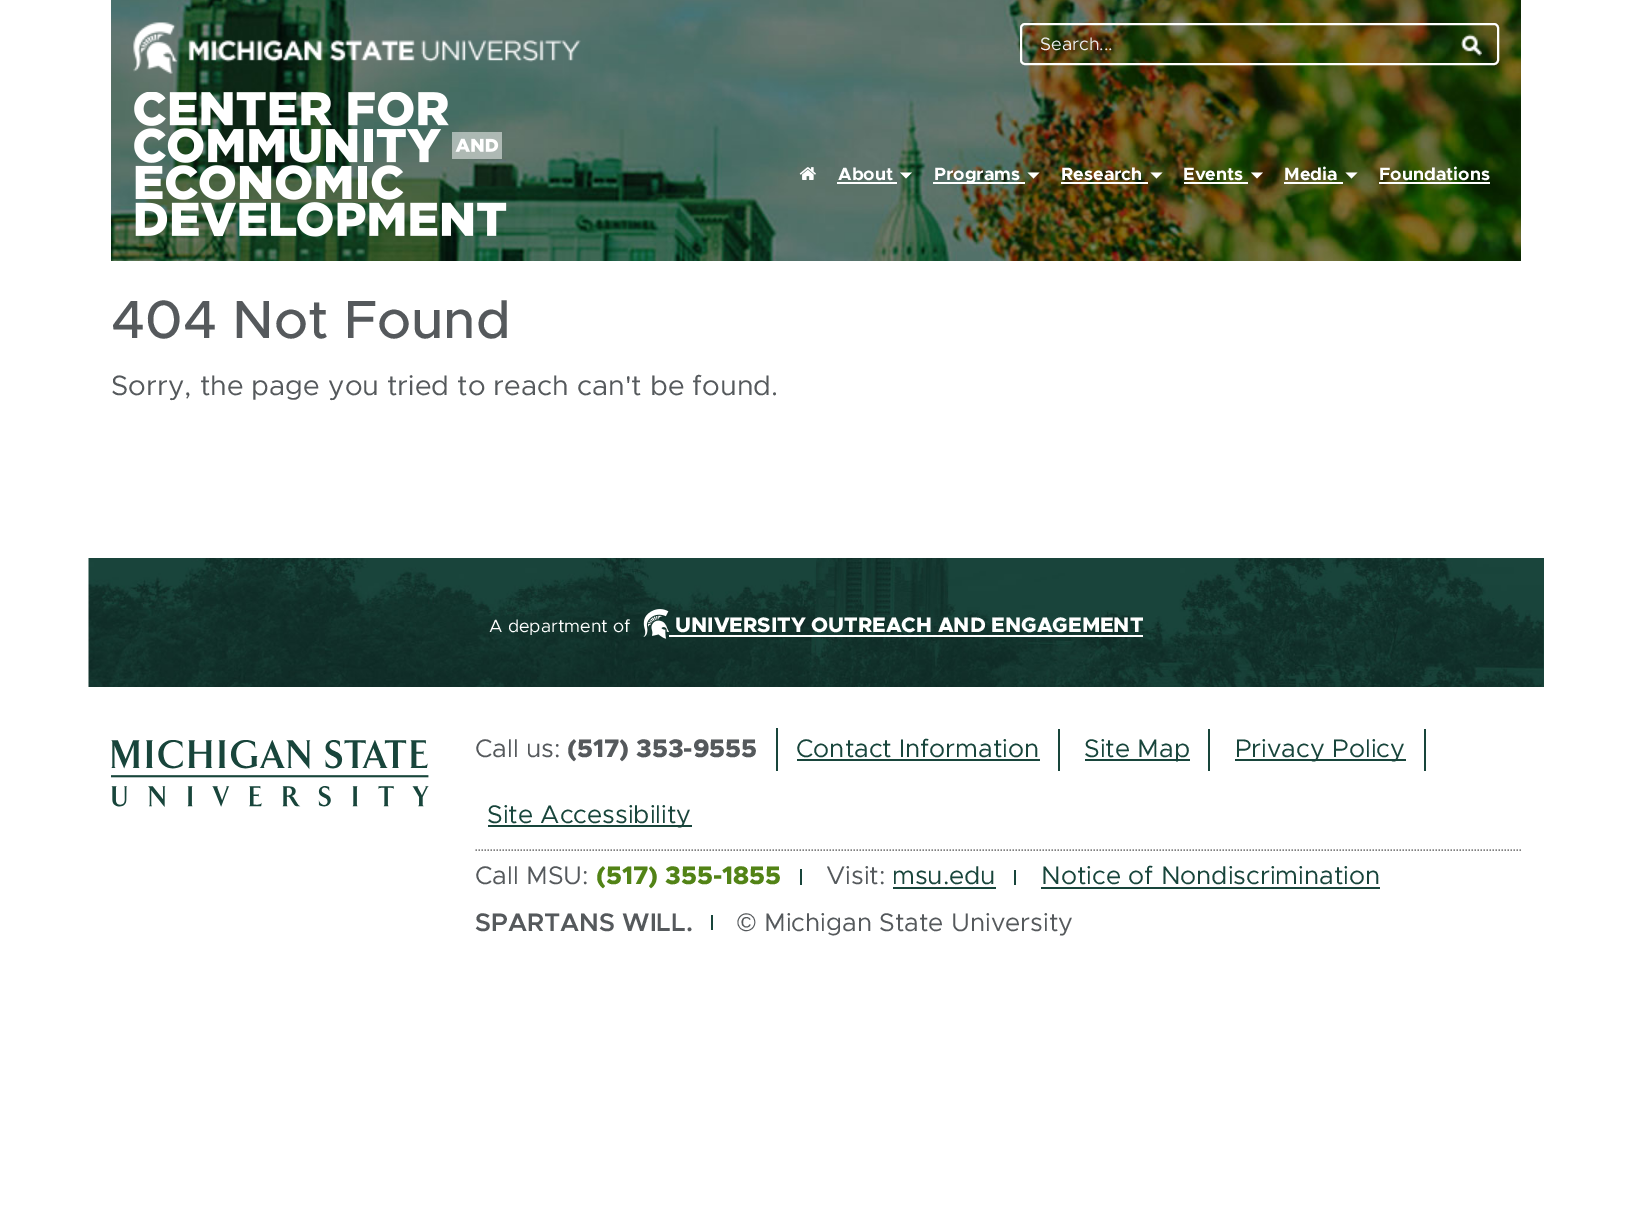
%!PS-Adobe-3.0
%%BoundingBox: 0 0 1631 1208
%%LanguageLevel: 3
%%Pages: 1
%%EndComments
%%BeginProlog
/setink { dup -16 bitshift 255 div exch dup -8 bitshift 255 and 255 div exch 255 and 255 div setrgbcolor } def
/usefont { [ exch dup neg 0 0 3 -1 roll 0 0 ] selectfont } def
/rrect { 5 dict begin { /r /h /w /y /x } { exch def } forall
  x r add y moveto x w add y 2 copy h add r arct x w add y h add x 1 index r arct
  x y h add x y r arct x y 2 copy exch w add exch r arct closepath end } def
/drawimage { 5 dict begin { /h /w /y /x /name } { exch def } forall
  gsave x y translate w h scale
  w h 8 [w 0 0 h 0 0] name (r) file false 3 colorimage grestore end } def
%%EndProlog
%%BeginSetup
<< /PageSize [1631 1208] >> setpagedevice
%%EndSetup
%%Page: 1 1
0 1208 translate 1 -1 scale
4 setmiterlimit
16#FFFFFF setink
0 0 1631 1208 rectfill
(img1.raw) 111 0 1410 261 drawimage
(img2.raw) 133 22 448 52 drawimage
2 setlinewidth
1021 24 477 40 4 rrect stroke
/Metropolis-Regular 18 usefont
16#ECEEEF setink
1040 50 moveto (Search...) show
(img3.raw) 1461 34 21 22 drawimage
(img4.raw) 134 92 373 145 drawimage
(img5.raw) 799 167 17 13 drawimage
/Metropolis-Bold 18 usefont
16#FFFFFF setink
838 180 moveto (About) show
837 182 60 2 rectfill
900 172.5 moveto 912 172.5 lineto 906 178.5 lineto closepath fill
933 182 92 2 rectfill
934 180 moveto (Programs) show
1027.5 172.5 moveto 1039.5 172.5 lineto 1033.5 178.5 lineto closepath fill
1061 180 moveto (Research) show
1061 182 87 2 rectfill
1150.5 172.5 moveto 1162.5 172.5 lineto 1156.5 178.5 lineto closepath fill
1183 180 moveto (Events) show
1184 182 64 2 rectfill
1251 172.5 moveto 1263 172.5 lineto 1257 178.5 lineto closepath fill
1284 180 moveto (Media) show
1284 182 59 2 rectfill
1345.5 172.5 moveto 1357.5 172.5 lineto 1351.5 178.5 lineto closepath fill
1379 180 moveto (Foundations) show
1379 182 111 2 rectfill
/Metropolis-Medium 54 usefont
16#55595C setink
111 338 moveto (404 Not Found) show
/Metropolis-Regular 28.05 usefont
111 395 moveto (Sorry, the page you tried to reach can't be found.) show
16#18453B setink
1543 558 1 129 rectfill
(img6.raw) 88 558 1456 129 drawimage
/Metropolis-Regular 17.75 usefont
16#FFFFFF setink
489 632 moveto (A department of) show
(img7.raw) 643 609 26 30 drawimage
/Metropolis-ExtraBold 21 usefont
675 632 moveto (UNIVERSITY OUTREACH AND ENGAGEMENT) show
669 635 474 2 rectfill
(img8.raw) 111 740 318 67 drawimage
16#808080 setink
1.5 setlinewidth
[1.5 1.5] 0 setdash
475.5 850 moveto 1521 850 lineto stroke
16#18453B setink
776 728 2 43 rectfill
/Metropolis-Regular 25.5 usefont
16#55595C setink
475 757 moveto (Call us:) show
/Metropolis-ExtraBold 25.5 usefont
567 757 moveto (\(517\) 353-9555) show
16#18453B setink
1058 729 2 42 rectfill
/Metropolis-Regular 25.5 usefont
796 757 moveto (Contact Information) show
[
    [797 759 243 2 16#18453B]
    [1208 729 2 42 16#18453B]
    [1085 759 105 2 16#18453B]
] { aload pop setink rectfill } forall
1084 757 moveto (Site Map) show
1424 729 2 42 rectfill
1235 759 171 2 rectfill
1235 757 moveto (Privacy Policy) show
488 825 204 2 rectfill
487 823 moveto (Site Accessibility) show
800 869 2 16 rectfill
16#55595C setink
475 884 moveto (Call MSU:) show
/Metropolis-ExtraBold 25.5 usefont
16#528316 setink
596 884 moveto (\(517\) 355-1855) show
16#18453B setink
1014 870 2 15 rectfill
/Metropolis-Regular 25.5 usefont
16#55595C setink
826 884 moveto (Visit:) show
16#18453B setink
892 884 moveto (msu.edu) show
893 887 103 2 rectfill
1041 884 moveto (Notice of Nondiscrimination) show
1041 887 339 2 rectfill
711 915 2 15 rectfill
/Metropolis-SemiBold 25.5 usefont
16#55595C setink
475 931 moveto (SPARTANS WILL.) show
/LiberationSans-Regular 25.5 usefont
737 931 moveto (©) show
/Metropolis-Regular 25.5 usefont
764 931 moveto (Michigan State University) show
showpage
%%EOF
